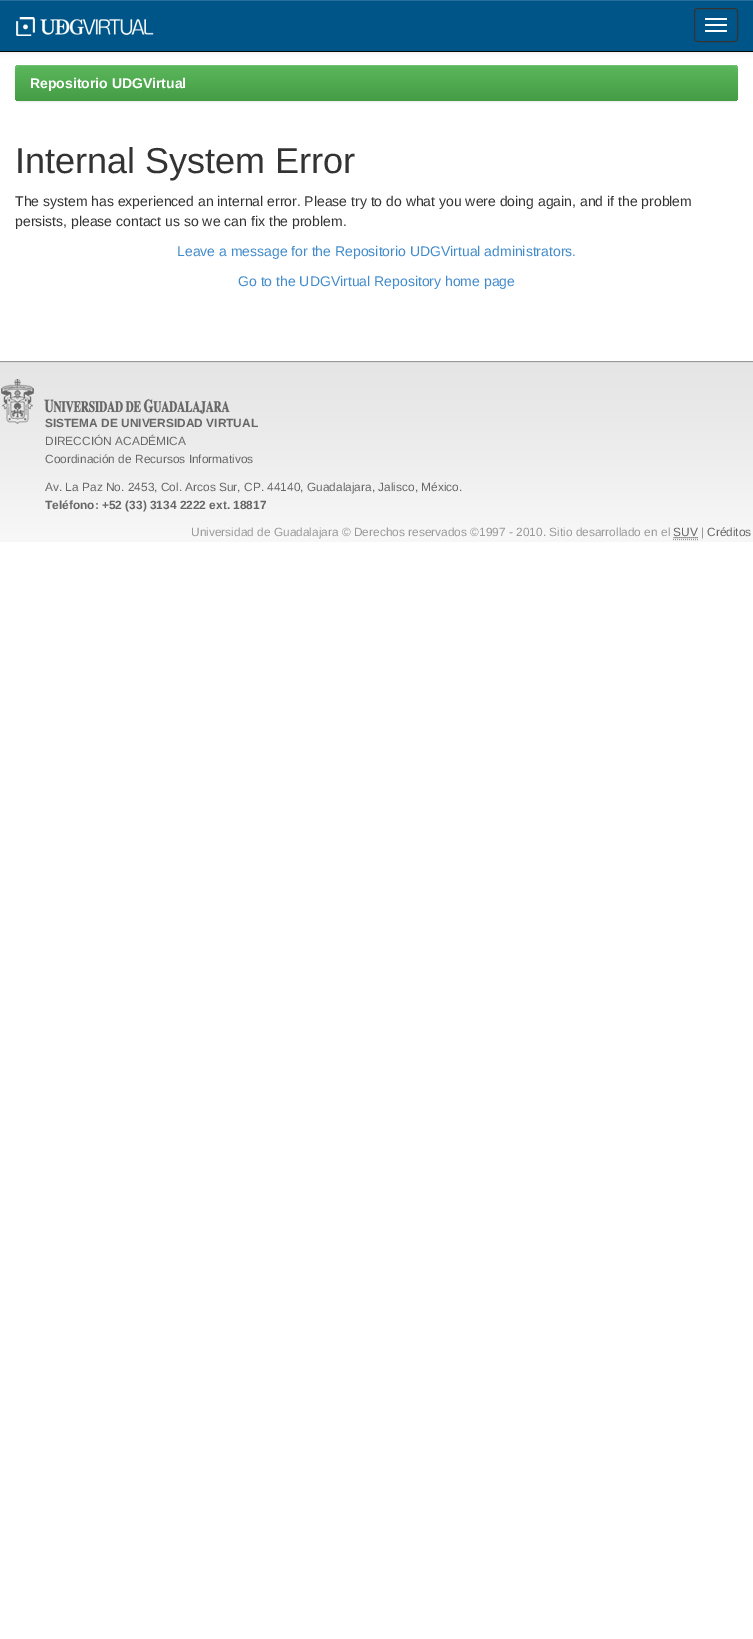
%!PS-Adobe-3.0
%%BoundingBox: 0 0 753 1639
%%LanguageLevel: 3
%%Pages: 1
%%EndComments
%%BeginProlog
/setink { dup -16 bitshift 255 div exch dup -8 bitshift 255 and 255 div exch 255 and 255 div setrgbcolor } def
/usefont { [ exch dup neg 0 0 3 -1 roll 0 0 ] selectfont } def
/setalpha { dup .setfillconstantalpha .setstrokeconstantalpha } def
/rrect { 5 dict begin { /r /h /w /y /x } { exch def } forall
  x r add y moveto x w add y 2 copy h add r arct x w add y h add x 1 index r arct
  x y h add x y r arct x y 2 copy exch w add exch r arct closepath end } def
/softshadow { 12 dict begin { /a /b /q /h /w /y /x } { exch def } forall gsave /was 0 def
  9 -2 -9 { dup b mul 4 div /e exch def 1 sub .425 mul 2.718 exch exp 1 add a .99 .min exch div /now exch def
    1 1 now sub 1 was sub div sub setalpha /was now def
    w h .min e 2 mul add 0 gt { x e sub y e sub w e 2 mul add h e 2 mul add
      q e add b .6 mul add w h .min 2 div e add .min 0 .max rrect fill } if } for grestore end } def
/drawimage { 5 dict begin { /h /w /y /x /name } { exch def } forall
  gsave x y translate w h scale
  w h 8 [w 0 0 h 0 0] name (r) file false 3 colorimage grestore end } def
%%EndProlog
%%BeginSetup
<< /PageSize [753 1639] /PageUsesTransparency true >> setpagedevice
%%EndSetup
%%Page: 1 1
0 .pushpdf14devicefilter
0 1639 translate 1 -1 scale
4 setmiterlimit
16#FFFFFF setink
0 0 753 1639 rectfill
16#000000 setink
0 1 753 52 0 2.5 0.07 softshadow
[
    [0 1 753 50 16#005588]
    [0 0 753 1 16#266F9A]
    [0 51 753 1 16#080808]
] { aload pop setink rectfill } forall
(img1.raw) 16 17 138 19 drawimage
16#333333 setink
694.5 8.5 43 33 3.5 rrect stroke
16#FFFFFF setink
705 18 22 2 1 rrect fill
705 24 22 2 1 rrect fill
705 30 22 2 1 rrect fill
16#000000 setink
15 66 723 36 4 0.5 0.07 softshadow
gsave 15 65 723 36 4 rrect clip newpath
<< /ShadingType 2 /ColorSpace /DeviceRGB /Coords [377 65 377 101] /Extend [true true] /Function << /FunctionType 2 /Domain [0 1] /C0 [0.361 0.722 0.361] /C1 [0.267 0.616 0.267] /N 1 >> >> shfill grestore
0.15 setalpha
16#FFFFFF setink
19 66 moveto 734 66 lineto 736 66 738 68 738 70 curveto 738 67 737 65 734 65 curveto 19 65 lineto 16 66 lineto 15 67 lineto 15 70 lineto 15 68 17 66 19 66 curveto closepath fill
/LiberationSans-Bold 14 usefont
1 setalpha
30 88 moveto (Repositorio UDGVirtual) show
/LiberationSans-Regular 36 usefont
16#333333 setink
15 173 moveto (Internal System Error) show
/LiberationSans-Regular 14 usefont
15 206 moveto (The system has experienced an internal error. Please try to do what you were doing again, and if the problem) show
15 226 moveto (persists, please contact us so we can fix the problem.) show
16#428BCA setink
177 256 moveto (Leave a message for the Repositorio UDGVirtual administrators.) show
238 286 moveto (Go to the UDGVirtual Repository home page) show
(img2.raw) 0 362 753 180 drawimage
16#989898 setink
0 361 753 1 rectfill
(img3.raw) 1 379 229 45 drawimage
/LiberationSans-Bold 11.9 usefont
16#666666 setink
45 427 moveto (SISTEMA DE UNIVERSIDAD VIRTUAL) show
/LiberationSans-Regular 11.9 usefont
[
    [(DIRECCIÓN ACADÉMICA) 45 445]
    [(Coordinación de Recursos Informativos) 45 463]
    [(Av. La Paz No. 2453, Col. Arcos Sur, CP. 44140, Guadalajara, Jalisco, México.) 45 491]
] { aload pop moveto show } forall
/LiberationSans-Bold 11.9 usefont
45 509 moveto (Teléfono: +52 \(33\) 3134 2222 ext. 18817) show
/LiberationSans-Regular 11.9 usefont
16#999999 setink
191 536 moveto (Universidad de Guadalajara © Derechos reservados ©1997 - 2010. Sitio desarrollado en el) show
16#666666 setink
673 536 moveto (SUV) show
16#999999 setink
[1 1] 0 setdash
673 539.5 moveto 698 539.5 lineto stroke
16#666666 setink
673.5 537.5 moveto 698 537.5 lineto stroke
16#999999 setink
701 536 moveto (|) show
16#666666 setink
707 536 moveto (Créditos) show
.poppdf14devicefilter showpage
%%EOF
